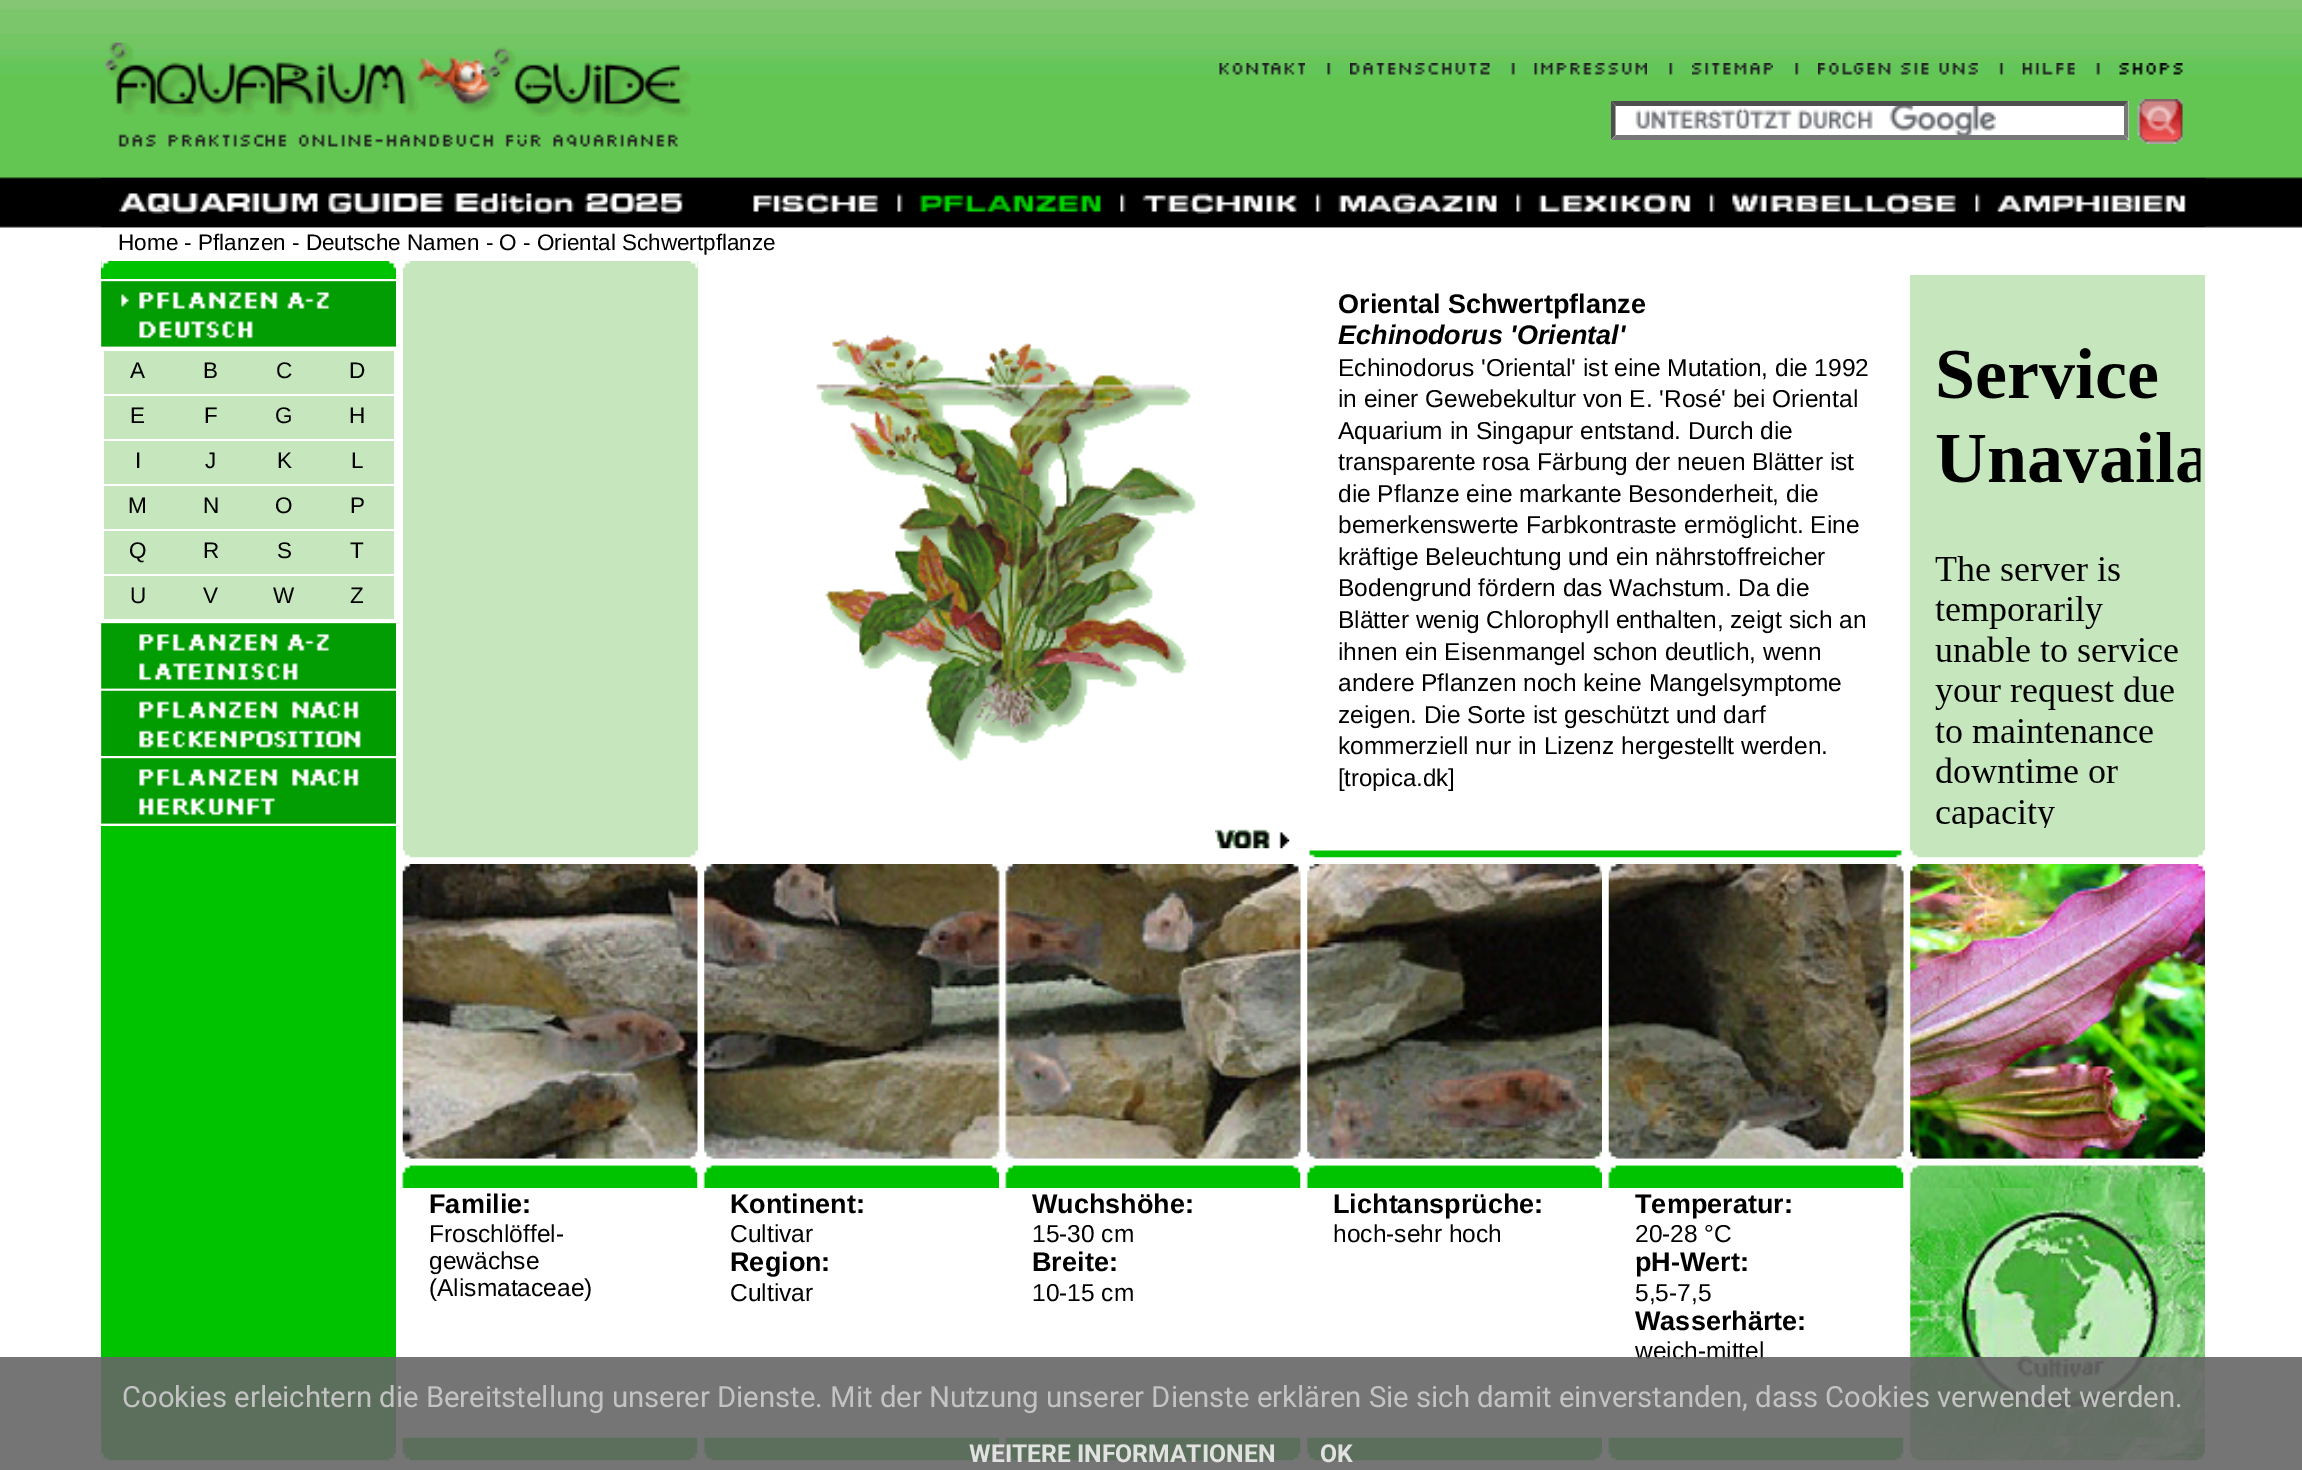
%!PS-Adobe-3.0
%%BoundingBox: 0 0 2302 1470
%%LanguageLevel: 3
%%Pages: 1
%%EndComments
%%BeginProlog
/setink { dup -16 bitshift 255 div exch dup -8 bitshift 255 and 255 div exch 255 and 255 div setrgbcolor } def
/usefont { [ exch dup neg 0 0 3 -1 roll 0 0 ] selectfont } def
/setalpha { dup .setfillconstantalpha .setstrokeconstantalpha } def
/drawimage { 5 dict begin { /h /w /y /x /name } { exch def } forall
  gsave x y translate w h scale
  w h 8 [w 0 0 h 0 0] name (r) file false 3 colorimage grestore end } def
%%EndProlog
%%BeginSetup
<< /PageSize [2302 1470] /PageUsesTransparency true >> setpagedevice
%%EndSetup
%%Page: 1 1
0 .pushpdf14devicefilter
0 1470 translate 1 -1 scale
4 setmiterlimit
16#FFFFFF setink
0 0 2302 1470 rectfill
(img1.raw) 0 0 2302 228 drawimage
(img2.raw) 105 42 586 105 drawimage
(img3.raw) 1219 63 86 12 drawimage
(img4.raw) 1327 63 4 12 drawimage
(img5.raw) 1350 63 140 12 drawimage
(img6.raw) 1511 63 4 12 drawimage
(img7.raw) 1534 63 113 12 drawimage
(img8.raw) 1669 63 4 12 drawimage
(img9.raw) 1692 63 81 12 drawimage
(img4.raw) 1795 63 4 12 drawimage
(img10.raw) 1818 63 160 12 drawimage
(img11.raw) 1999 63 5 12 drawimage
(img12.raw) 2022 63 53 12 drawimage
(img6.raw) 2096 63 4 12 drawimage
(img13.raw) 2119 63 64 12 drawimage
1611 101 518 39 rectfill
(img14.raw) 1635 106 361 29 drawimage
16#4F4F4F setink
1611 101 moveto 2128 101 lineto 2124 106 lineto 1616 106 lineto closepath fill
16#767676 setink
2128.5 101 moveto 2128.5 139.5 lineto 2124 135 lineto 2124 106 lineto closepath fill
2128 140 moveto 1611 140 lineto 1616 135 lineto 2124 135 lineto closepath fill
16#4F4F4F setink
1611 139.5 moveto 1611 101 lineto 1615.5 106 lineto 1615.5 135 lineto closepath fill
(img15.raw) 2137 99 46 45 drawimage
16#000000 setink
101 178 2104 49 rectfill
(img16.raw) 119 193 564 21 drawimage
(img17.raw) 753 193 126 21 drawimage
(img18.raw) 897 193 6 20 drawimage
(img19.raw) 919 195 182 18 drawimage
(img20.raw) 1120 193 6 20 drawimage
(img21.raw) 1142 193 155 21 drawimage
(img22.raw) 1315 193 7 20 drawimage
(img23.raw) 1338 193 159 21 drawimage
(img20.raw) 1516 193 6 20 drawimage
(img24.raw) 1538 193 153 21 drawimage
(img25.raw) 1709 193 6 20 drawimage
(img26.raw) 1732 193 224 21 drawimage
(img20.raw) 1975 193 6 20 drawimage
(img27.raw) 1997 195 189 18 drawimage
/LiberationSans-Regular 22.5 usefont
118 250 moveto (Home - Pflanzen - Deutsche Namen - O - Oriental Schwertpflanze) show
16#00C300 setink
101 261 295 1177 rectfill
(img28.raw) 101 261 295 8 drawimage
16#C6E7BD setink
101 281 295 543 rectfill
16#FFFFFF setink
101 279 295 2 rectfill
(img29.raw) 101 281 295 66 drawimage
101 347 295 276 rectfill
16#C6E7BD setink
104 351 290 43 rectfill
16#000000 setink
[
    [(A) 130 378]
    [(B) 203 378]
    [(C) 276 378]
    [(D) 349 378]
] { aload pop moveto show } forall
16#C6E7BD setink
104 396 290 43 rectfill
16#000000 setink
[
    [(E) 130 423]
    [(F) 204 423]
    [(G) 275 423]
    [(H) 349 423]
] { aload pop moveto show } forall
16#C6E7BD setink
104 441 290 43 rectfill
16#000000 setink
[
    [(I) 135 468]
    [(J) 205 468]
    [(K) 277 468]
    [(L) 351 468]
] { aload pop moveto show } forall
16#C6E7BD setink
104 486 290 43 rectfill
16#000000 setink
[
    [(M) 128 513]
    [(N) 203 513]
    [(O) 275 513]
    [(P) 350 513]
] { aload pop moveto show } forall
16#C6E7BD setink
104 531 290 43 rectfill
16#000000 setink
[
    [(Q) 129 558]
    [(R) 203 558]
    [(S) 277 558]
    [(T) 350 558]
] { aload pop moveto show } forall
16#C6E7BD setink
104 576 290 43 rectfill
16#000000 setink
[
    [(U) 130 603]
    [(V) 203 603]
    [(W) 273 603]
    [(Z) 350 603]
] { aload pop moveto show } forall
(img30.raw) 101 623 295 66 drawimage
16#FFFFFF setink
101 689 295 2 rectfill
(img31.raw) 101 690 295 66 drawimage
101 756 295 2 rectfill
(img32.raw) 101 758 295 66 drawimage
[
    [101 824 295 2 16#FFFFFF]
    [403 270 2 565 16#C6E7BD]
    [405 270 293 565 16#C6E7BD]
    [697 261 1 9 16#C6E7BD]
] { aload pop setink rectfill } forall
(img33.raw) 402 261 296 9 drawimage
(img34.raw) 816 334 380 427 drawimage
(img35.raw) 1215 829 75 20 drawimage
/LiberationSans-Bold 27 usefont
16#000000 setink
1338 313 moveto (Oriental Schwertpflanze) show
/LiberationSans-BoldItalic 27 usefont
1338 344 moveto (Echinodorus 'Oriental') show
/LiberationSans-Regular 24.5 usefont
[
    [(Echinodorus 'Oriental' ist eine Mutation, die 1992) 1338 376]
    [(in einer Gewebekultur von E. 'Rosé' bei Oriental) 1338 407]
    [(Aquarium in Singapur entstand. Durch die) 1338 439]
    [(transparente rosa Färbung der neuen Blätter ist) 1338 470]
    [(die Pflanze eine markante Besonderheit, die) 1338 502]
    [(bemerkenswerte Farbkontraste ermöglicht. Eine) 1338 533]
    [(kräftige Beleuchtung und ein nährstoffreicher) 1338 565]
    [(Bodengrund fördern das Wachstum. Da die) 1338 596]
    [(Blätter wenig Chlorophyll enthalten, zeigt sich an) 1338 628]
    [(ihnen ein Eisenmangel schon deutlich, wenn) 1338 660]
    [(andere Pflanzen noch keine Mangelsymptome) 1338 691]
    [(zeigen. Die Sorte ist geschützt und darf) 1338 723]
    [(kommerziell nur in Lizenz hergestellt werden.) 1338 754]
    [([) 1338 786]
] { aload pop moveto show } forall
/LiberationSans-Regular 24 usefont
1344 786 moveto (tropica.dk) show
/LiberationSans-Regular 24.5 usefont
1448 786 moveto (]) show
16#C6E7BD setink
1910 275 295 576 rectfill
(img36.raw) 1935 348 266 480 drawimage
403 835 295 16 rectfill
(img37.raw) 403 850 295 8 drawimage
(img38.raw) 1309 850 896 8 drawimage
(img39.raw) 402 864 296 295 drawimage
(img40.raw) 704 864 597 295 drawimage
(img41.raw) 1307 864 295 295 drawimage
(img42.raw) 1608 864 296 295 drawimage
(img43.raw) 1910 864 295 295 drawimage
(img44.raw) 402 1158 296 30 drawimage
(img45.raw) 697 1158 302 30 drawimage
(img46.raw) 1005 1158 296 30 drawimage
(img47.raw) 1300 1158 302 30 drawimage
(img48.raw) 1608 1158 296 30 drawimage
(img49.raw) 1903 1158 302 30 drawimage
/LiberationSans-Bold 27 usefont
16#000000 setink
429 1213 moveto (Familie:) show
/LiberationSans-Regular 24.5 usefont
[
    [(Froschlöffel-) 429 1242]
    [(gewächse) 429 1269]
    [(\(Alismataceae\)) 429 1296]
] { aload pop moveto show } forall
/LiberationSans-Bold 27 usefont
730 1213 moveto (Kontinent:) show
/LiberationSans-Regular 24.5 usefont
730 1242 moveto (Cultivar) show
/LiberationSans-Bold 27 usefont
730 1271 moveto (Region:) show
/LiberationSans-Regular 24.5 usefont
730 1301 moveto (Cultivar) show
/LiberationSans-Bold 27 usefont
1032 1213 moveto (Wuchshöhe:) show
/LiberationSans-Regular 24.5 usefont
1032 1242 moveto (15-30 cm) show
/LiberationSans-Bold 27 usefont
1032 1271 moveto (Breite:) show
/LiberationSans-Regular 24.5 usefont
1032 1301 moveto (10-15 cm) show
/LiberationSans-Bold 27 usefont
1333 1213 moveto (Lichtansprüche:) show
/LiberationSans-Regular 24.5 usefont
1333 1242 moveto (hoch-sehr hoch) show
/LiberationSans-Bold 27 usefont
1635 1213 moveto (Temperatur:) show
/LiberationSans-Regular 24.5 usefont
1635 1242 moveto (20-28 °C) show
/LiberationSans-Bold 27 usefont
1635 1271 moveto (pH-Wert:) show
/LiberationSans-Regular 24.5 usefont
1635 1301 moveto (5,5-7,5) show
/LiberationSans-Bold 27 usefont
1635 1330 moveto (Wasserhärte:) show
/LiberationSans-Regular 24.5 usefont
1635 1359 moveto (weich-mittel) show
(img50.raw) 1910 1188 295 250 drawimage
(img51.raw) 101 1438 295 23 drawimage
(img52.raw) 402 1437 296 24 drawimage
(img53.raw) 697 1437 302 24 drawimage
(img52.raw) 1005 1437 296 24 drawimage
(img54.raw) 1300 1437 302 24 drawimage
(img52.raw) 1608 1437 296 24 drawimage
(img55.raw) 1903 1437 302 24 drawimage
0.9 setalpha
16#666666 setink
0 1357 2302 113 rectfill
/Roboto-Regular 29.25 usefont
1 setalpha
16#C3C3C3 setink
122 1407 moveto (Cookies erleichtern die Bereitstellung unserer Dienste. Mit der Nutzung unserer Dienste erklären Sie sich damit einverstanden, dass Cookies verwendet werden.) show
/Roboto-Bold 24.75 usefont
16#E0E1E0 setink
969 1462 moveto (WEITERE INFORMATIONEN) show
1320 1462 moveto (OK) show
.poppdf14devicefilter showpage
%%EOF
